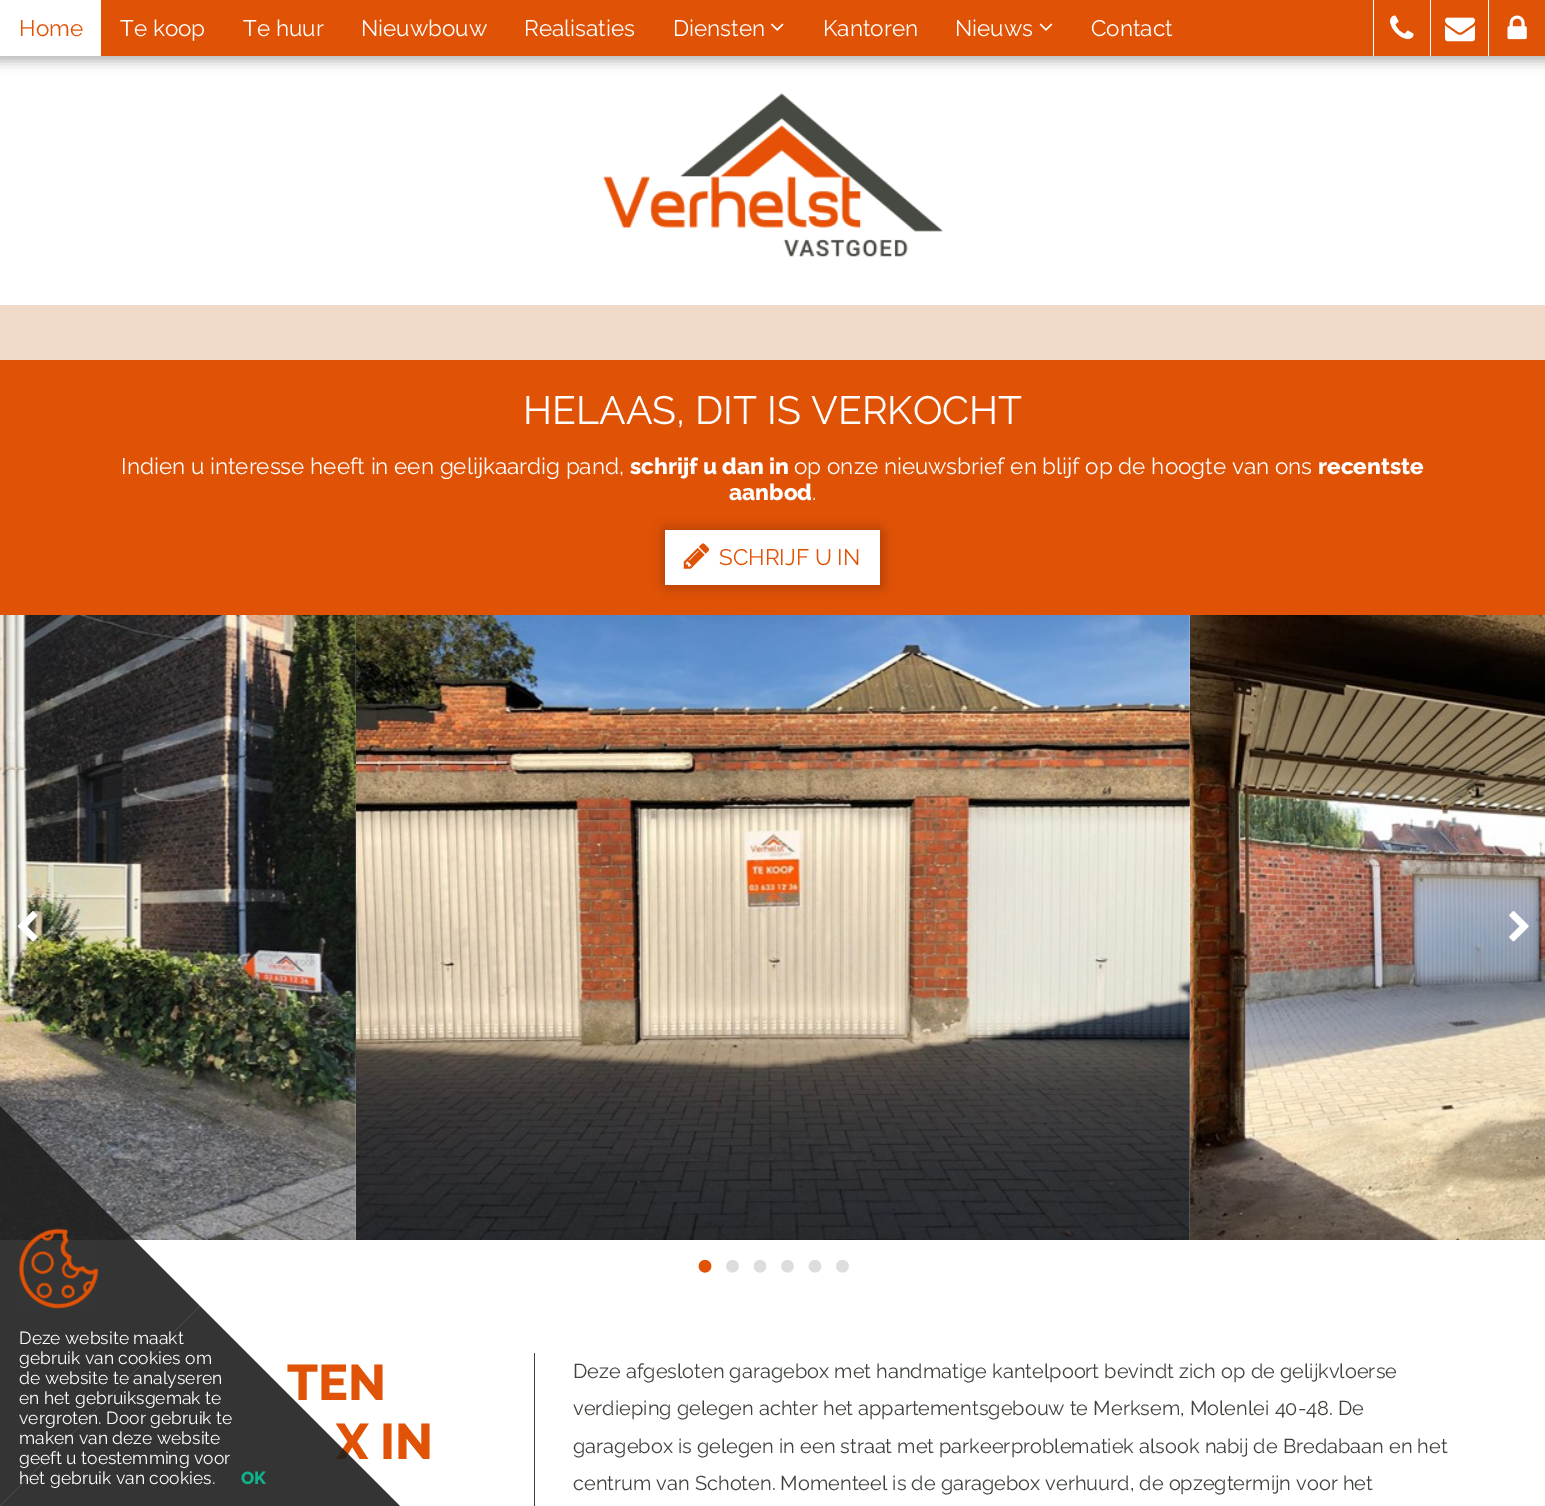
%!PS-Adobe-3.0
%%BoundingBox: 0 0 1545 1506
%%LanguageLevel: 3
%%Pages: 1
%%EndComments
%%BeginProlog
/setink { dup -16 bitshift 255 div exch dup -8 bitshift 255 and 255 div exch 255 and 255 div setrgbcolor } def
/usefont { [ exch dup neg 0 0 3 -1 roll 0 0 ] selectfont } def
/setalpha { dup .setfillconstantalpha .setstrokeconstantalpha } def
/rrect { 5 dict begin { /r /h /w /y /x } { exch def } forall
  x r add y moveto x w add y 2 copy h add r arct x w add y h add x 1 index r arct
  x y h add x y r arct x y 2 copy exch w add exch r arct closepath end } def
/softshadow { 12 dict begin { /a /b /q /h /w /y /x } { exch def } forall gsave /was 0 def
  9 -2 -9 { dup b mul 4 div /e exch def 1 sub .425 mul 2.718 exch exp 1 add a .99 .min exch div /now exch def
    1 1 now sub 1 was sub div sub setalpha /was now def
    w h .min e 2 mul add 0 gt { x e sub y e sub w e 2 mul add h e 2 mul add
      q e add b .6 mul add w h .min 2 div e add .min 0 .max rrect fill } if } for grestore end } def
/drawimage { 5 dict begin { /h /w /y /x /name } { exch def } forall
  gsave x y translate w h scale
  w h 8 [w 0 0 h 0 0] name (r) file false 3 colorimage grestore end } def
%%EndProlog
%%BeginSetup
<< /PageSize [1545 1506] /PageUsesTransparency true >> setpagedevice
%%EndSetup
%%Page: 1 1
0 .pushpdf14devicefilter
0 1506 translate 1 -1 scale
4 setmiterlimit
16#FFFFFF setink
0 0 1545 1506 rectfill
16#000000 setink
-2 0 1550 61 0 6 0.3 softshadow
16#E05206 setink
101 0 1444 56 rectfill
16#FFFFFF setink
0 0 101 56 rectfill
/Raleway-Regular 22.5 usefont
16#E05206 setink
19 36 moveto (Home) show
16#FFFFFF setink
[
    [(Te koop) 120 36]
    [(Te huur) 243 36]
    [(Nieuwbouw) 361 36]
    [(Realisaties) 524 36]
    [(Diensten) 673 36]
] { aload pop moveto show } forall
(img1.raw) 771 23 13 8 drawimage
823 36 moveto (Kantoren) show
955 36 moveto (Nieuws) show
(img2.raw) 1039 23 14 8 drawimage
1091 36 moveto (Contact) show
1373 0 1 56 rectfill
(img3.raw) 1390 15 24 25 drawimage
1430 0 1 56 rectfill
(img4.raw) 1445 17 30 25 drawimage
1488 0 1 56 rectfill
(img5.raw) 1507 15 20 25 drawimage
(img6.raw) 603 93 340 164 drawimage
16#F1DBC8 setink
0 305 1545 55 rectfill
16#E05206 setink
0 360 1545 255 rectfill
/Raleway-Regular 39.4 usefont
16#FFFFFF setink
523 424 moveto (HELAAS, DIT IS VERKOCHT) show
/Raleway-Regular 22.5 usefont
121 474 moveto (Indien u interesse heeft in een gelijkaardig pand,) show
/Raleway-ExtraBold 22.5 usefont
630 474 moveto (schrijf u dan in) show
/Raleway-Regular 22.5 usefont
794 474 moveto (op onze nieuwsbrief en blijf op de hoogte van ons) show
/Raleway-ExtraBold 22.5 usefont
1318 474 moveto (recentste) show
729 500 moveto (aanbod) show
/Raleway-Regular 22.5 usefont
812 500 moveto (.) show
16#000000 setink
663 528 215 55 0 6 0.15 softshadow
668 533 215 55 0 6 0.15 softshadow
16#FFFFFF setink
665 530 215 55 rectfill
(img7.raw) 683 543 27 26 drawimage
16#E05206 setink
719 565 moveto (SCHRIJF U IN) show
(img8.raw) 0 615 356 625 drawimage
(img9.raw) 356 615 834 625 drawimage
(img10.raw) 1190 615 355 625 drawimage
(img11.raw) 17 911 21 31 drawimage
(img12.raw) 1509 911 20 31 drawimage
(img13.raw) 698 1259 14 14 drawimage
(img14.raw) 726 1259 13 14 drawimage
(img15.raw) 753 1260 14 13 drawimage
(img14.raw) 781 1259 13 14 drawimage
(img15.raw) 808 1260 14 13 drawimage
(img14.raw) 836 1259 13 14 drawimage
16#3E433C setink
534 1353 1 153 rectfill
/Raleway-ExtraBold 50 usefont
16#E05206 setink
287 1400 moveto (TEN) show
336 1459 moveto (X IN) show
/Raleway-Regular 20 usefont
16#3E433C setink
[
    [(Deze afgesloten garagebox met handmatige kantelpoort bevindt zich op de gelijkvloerse) 573 1378]
    [(verdieping gelegen achter het appartementsgebouw te Merksem, Molenlei 40-48. De) 573 1415]
    [(garagebox is gelegen in een straat met parkeerproblematiek alsook nabij de Bredabaan en het) 573 1453]
    [(centrum van Schoten. Momenteel is de garagebox verhuurd, de opzegtermijn voor het) 573 1490]
] { aload pop moveto show } forall
0.9 setalpha
16#1E1E1E setink
400 1506 moveto 0 1506 lineto 200 1306 lineto closepath fill
0 1506 moveto 0 1106 lineto 200 1306 lineto closepath fill
1 setalpha
(img16.raw) 18 1228 81 81 drawimage
/Raleway-Regular 17.5 usefont
16#FFFFFF setink
[
    [(Deze website maakt) 19 1344]
    [(gebruik van cookies om) 19 1364]
    [(de website te analyseren) 19 1384]
    [(en het gebruiksgemak te) 19 1404]
    [(vergroten. Door gebruik te) 19 1424]
    [(maken van deze website) 19 1444]
    [(geeft u toestemming voor) 19 1464]
    [(het gebruik van cookies.) 19 1484]
] { aload pop moveto show } forall
/Raleway-ExtraBold 17.5 usefont
16#0EB38B setink
241 1484 moveto (OK) show
.poppdf14devicefilter showpage
%%EOF
